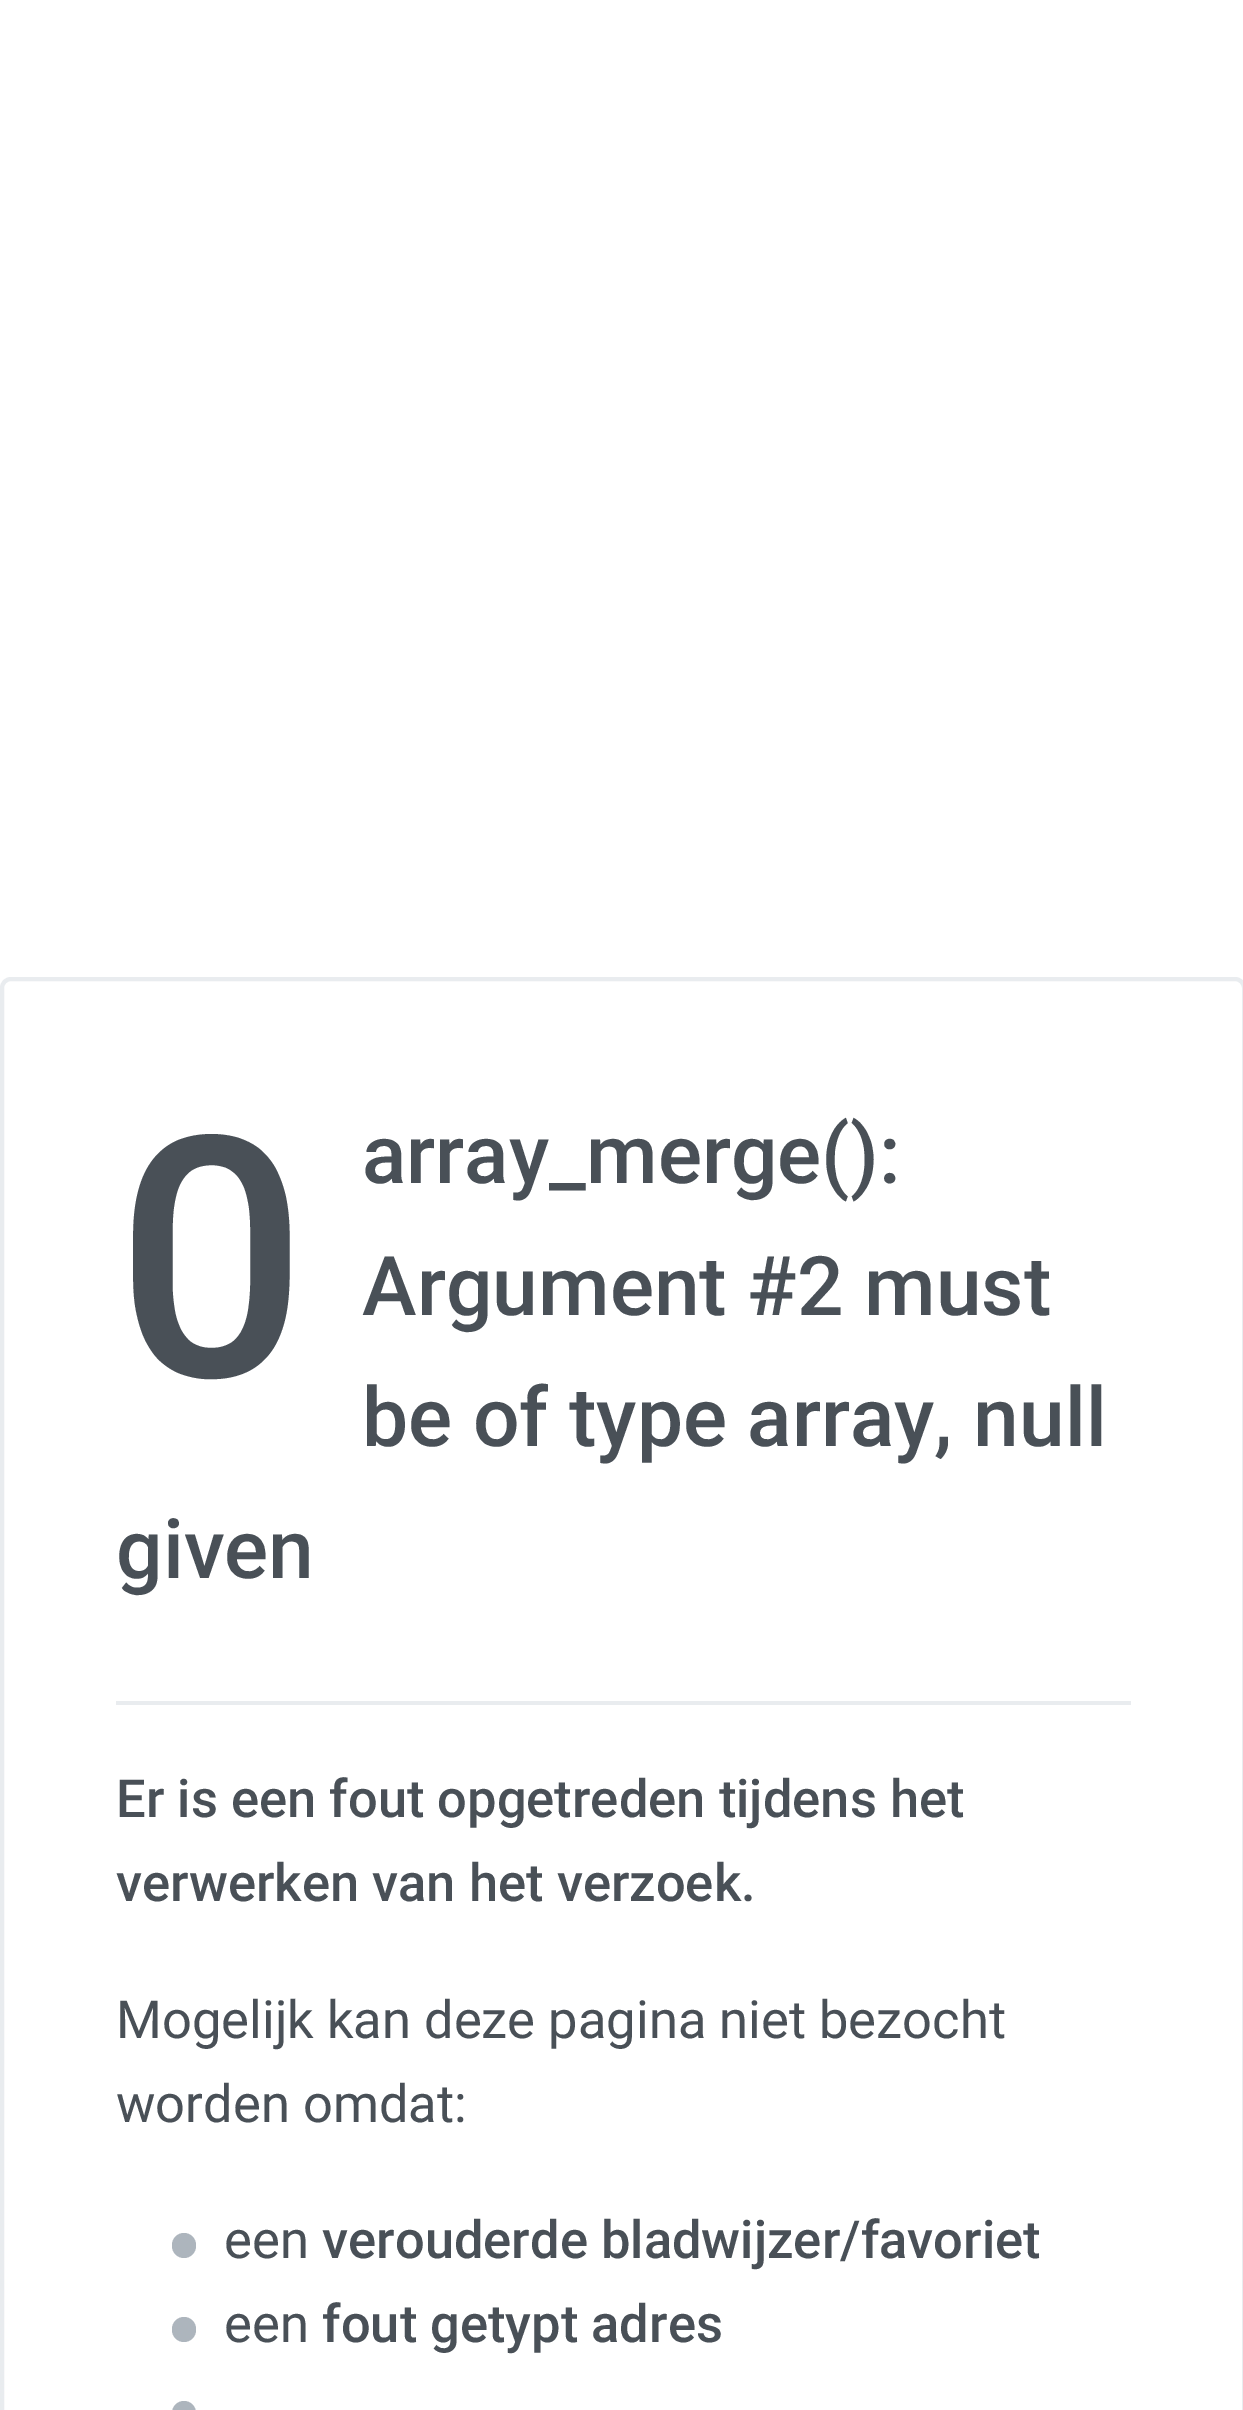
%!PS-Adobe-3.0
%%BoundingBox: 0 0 1243 2410
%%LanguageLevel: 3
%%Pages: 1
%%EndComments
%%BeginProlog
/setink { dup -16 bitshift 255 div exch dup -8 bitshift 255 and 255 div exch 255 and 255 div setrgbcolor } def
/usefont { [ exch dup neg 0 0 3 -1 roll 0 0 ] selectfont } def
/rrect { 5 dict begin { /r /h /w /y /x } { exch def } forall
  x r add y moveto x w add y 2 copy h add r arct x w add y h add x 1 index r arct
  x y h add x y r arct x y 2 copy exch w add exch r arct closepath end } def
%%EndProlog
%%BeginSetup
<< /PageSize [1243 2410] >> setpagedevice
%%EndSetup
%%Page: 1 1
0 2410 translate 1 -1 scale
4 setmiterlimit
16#FFFFFF setink
0 0 1243 2410 rectfill
16#E9ECEF setink
4 setlinewidth
2 979 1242 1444 9 rrect stroke
116 1701 1015 4 rectfill
/Roboto-Medium 82.25 usefont
16#495057 setink
[
    [(array_merge\(\):) 362 1183]
    [(Argument #2 must) 362 1315]
    [(be of type array, null) 362 1446]
    [(given) 116 1578]
] { aload pop moveto show } forall
/Roboto-Medium 336 usefont
116 1376 moveto (0) show
/Roboto-Medium 52.5 usefont
116 1817 moveto (Er is een fout opgetreden tijdens het) show
116 1901 moveto (verwerken van het verzoek.) show
/Roboto-Regular 52.5 usefont
116 2038 moveto (Mogelijk kan deze pagina niet bezocht) show
116 2122 moveto (worden omdat:) show
16#ADB5BD setink
172 2233 24 25 12 rrect fill
16#495057 setink
224 2258 moveto (een) show
/Roboto-Medium 52.5 usefont
322 2258 moveto (verouderde bladwijzer/favoriet) show
16#ADB5BD setink
172 2317 24 25 12 rrect fill
/Roboto-Regular 52.5 usefont
16#495057 setink
224 2342 moveto (een) show
/Roboto-Medium 52.5 usefont
322 2342 moveto (fout getypt adres) show
16#ADB5BD setink
172 2401 24 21 12 rrect fill
showpage
%%EOF
